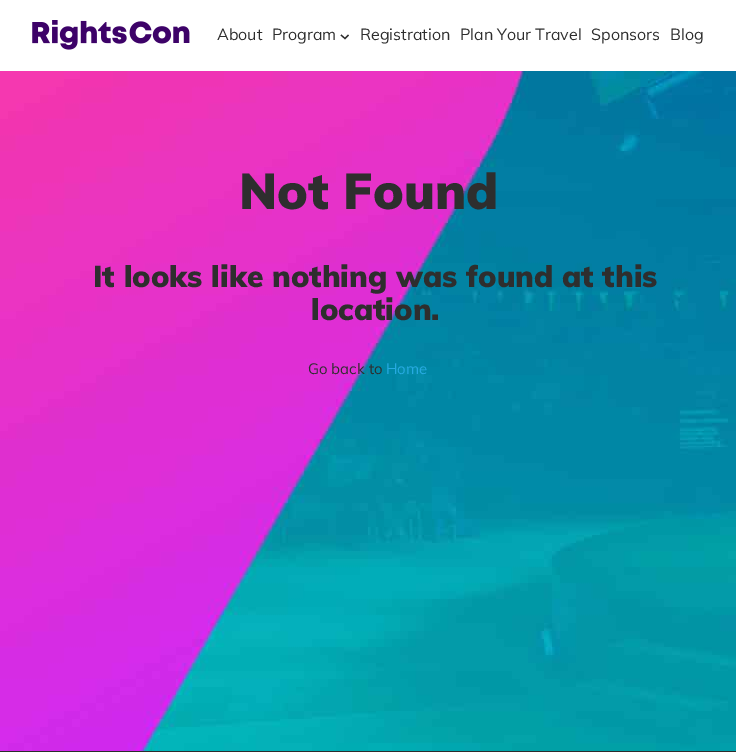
%!PS-Adobe-3.0
%%BoundingBox: 0 0 736 752
%%LanguageLevel: 3
%%Pages: 1
%%EndComments
%%BeginProlog
/setink { dup -16 bitshift 255 div exch dup -8 bitshift 255 and 255 div exch 255 and 255 div setrgbcolor } def
/usefont { [ exch dup neg 0 0 3 -1 roll 0 0 ] selectfont } def
/drawimage { 5 dict begin { /h /w /y /x /name } { exch def } forall
  gsave x y translate w h scale
  w h 8 [w 0 0 h 0 0] name (r) file false 3 colorimage grestore end } def
%%EndProlog
%%BeginSetup
<< /PageSize [736 752] >> setpagedevice
%%EndSetup
%%Page: 1 1
0 752 translate 1 -1 scale
4 setmiterlimit
16#FFFFFF setink
0 0 736 752 rectfill
(img1.raw) 32 20 158 30 drawimage
/Muli-Regular 16 usefont
16#2E2E2E setink
217 40 moveto (About) show
272 40 moveto (Program) show
16#2C2C2C setink
1.2 setlinewidth
341 35 moveto 345 38.5 lineto 348.5 35 lineto stroke
16#2E2E2E setink
[
    [(Registration) 360 40]
    [(Plan Your Travel) 460 40]
    [(Sponsors) 591 40]
    [(Blog) 670 40]
] { aload pop moveto show } forall
(img2.raw) 0 71 736 680 drawimage
/Muli-Black 50 usefont
239 209 moveto (Not Found) show
/Muli-Black 30 usefont
93 287 moveto (It looks like nothing was found at this) show
311 320 moveto (location.) show
/Muli-Regular 15 usefont
308 374 moveto (Go back to) show
16#27AAE1 setink
386 374 moveto (Home) show
16#2C2C2C setink
0 751 736 1 rectfill
showpage
%%EOF
